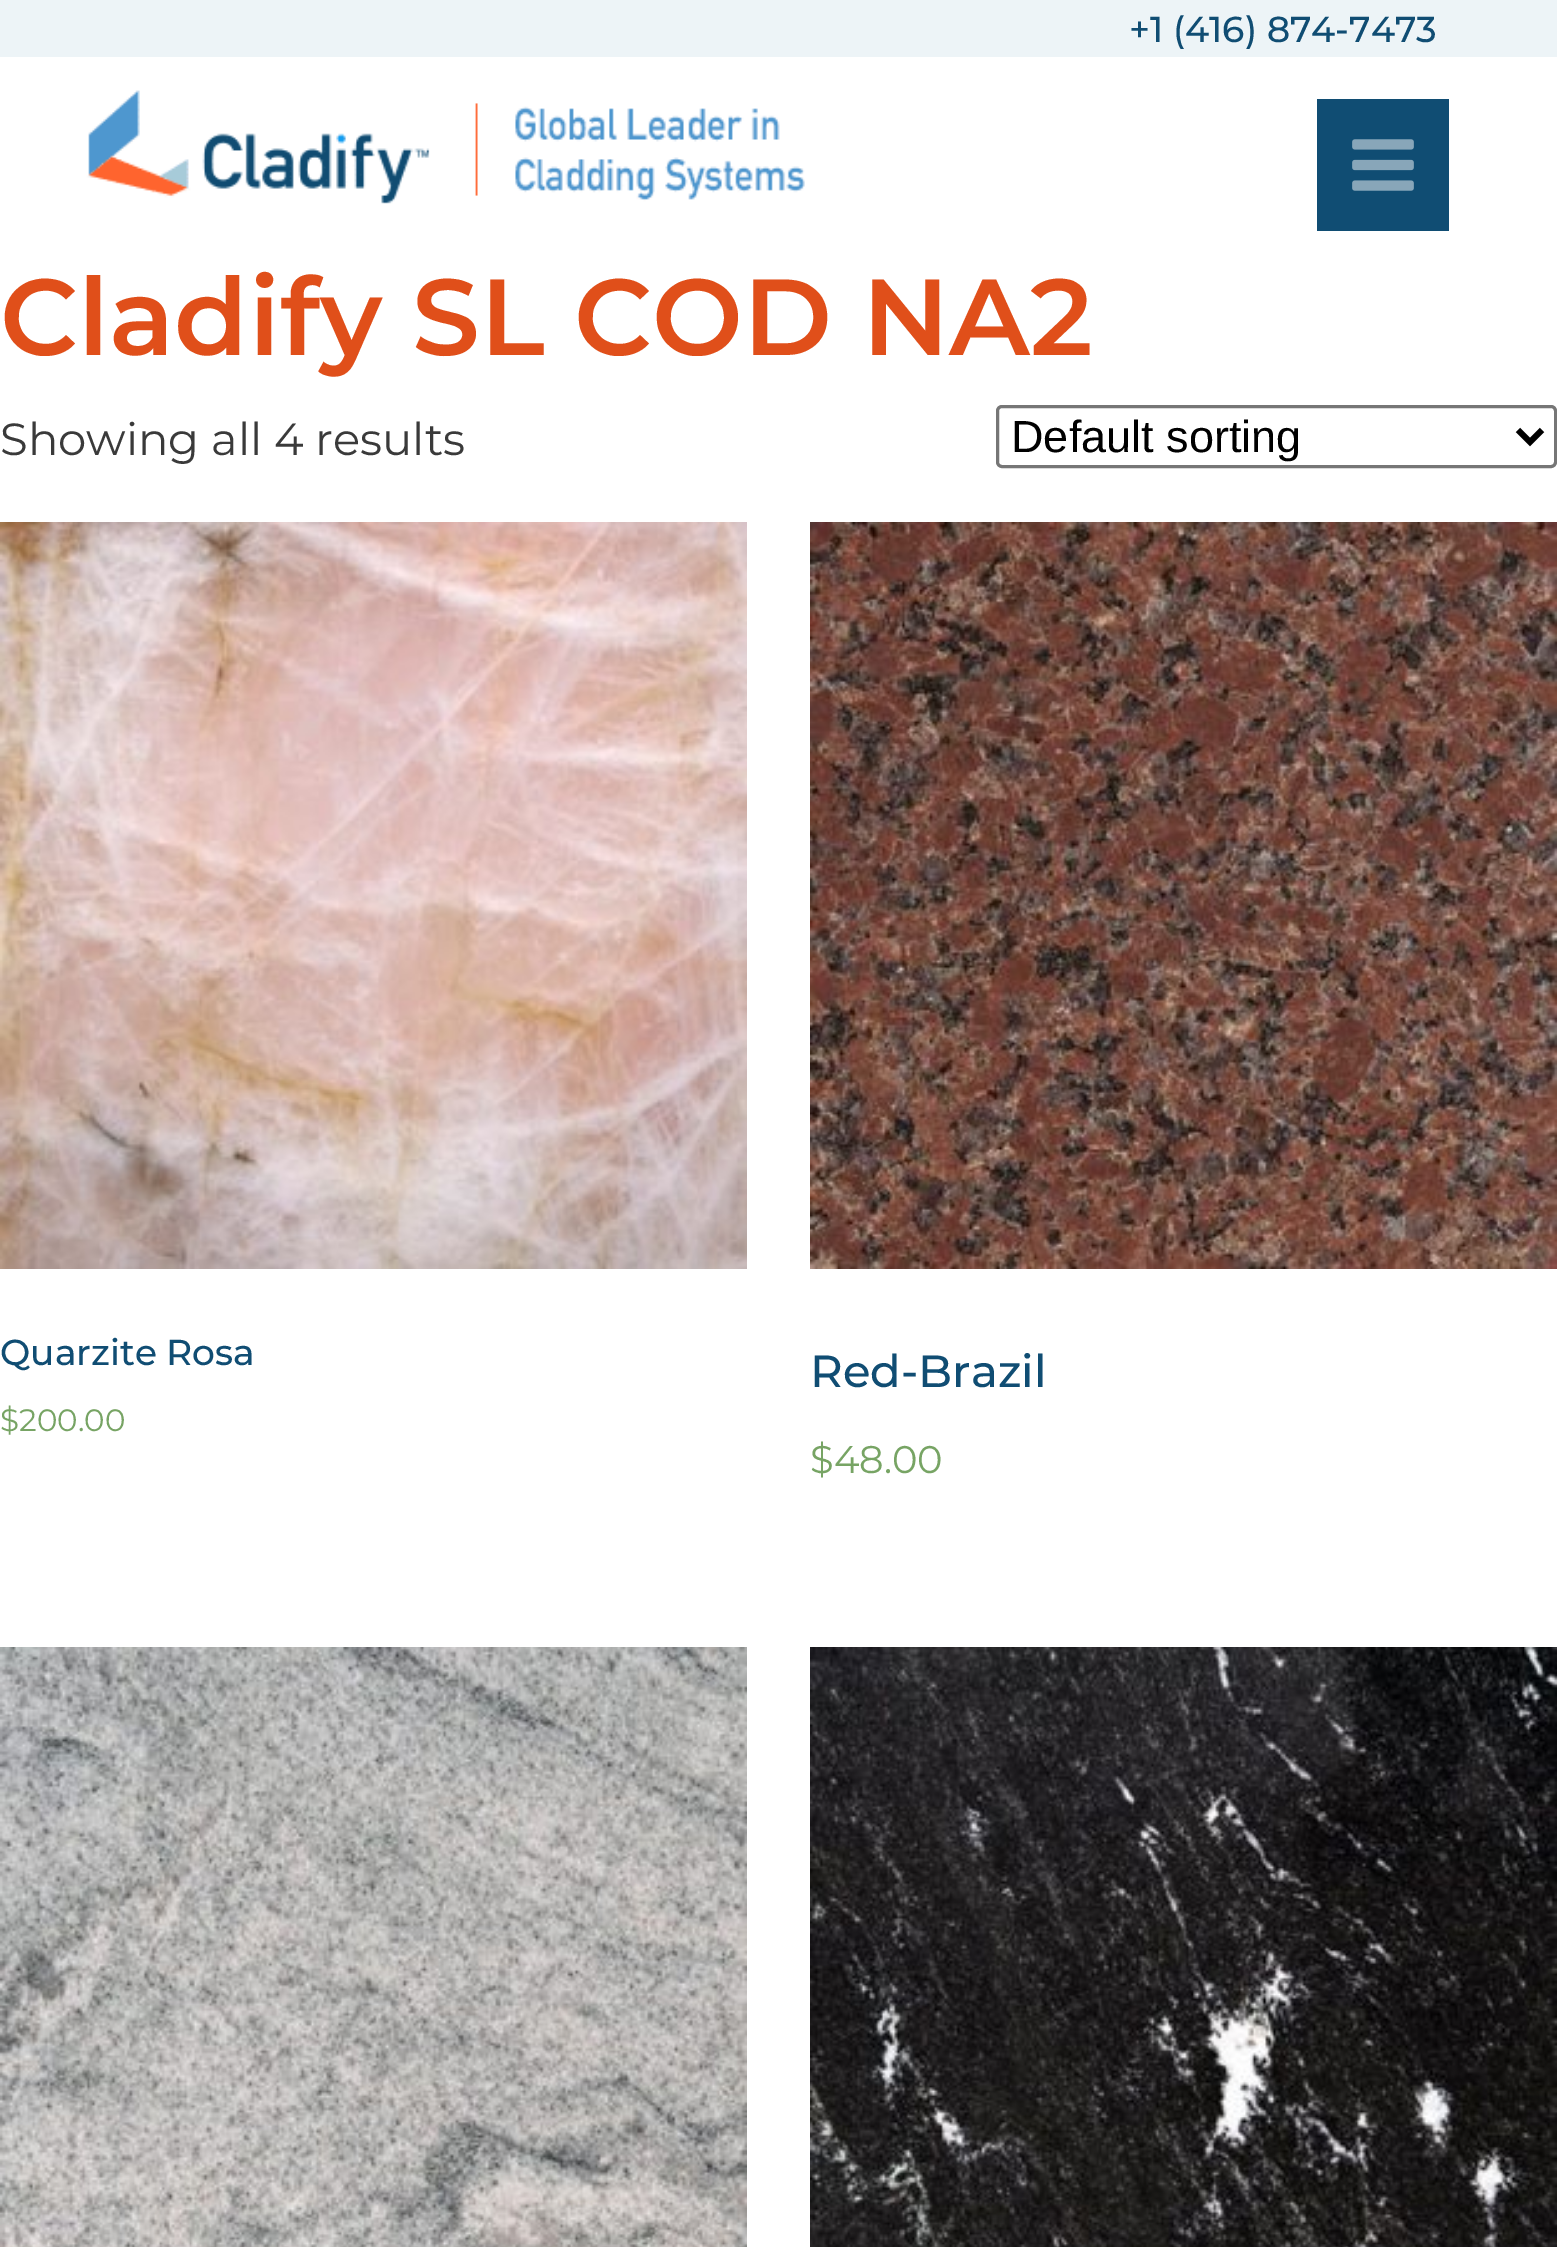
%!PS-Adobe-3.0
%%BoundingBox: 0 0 1557 2247
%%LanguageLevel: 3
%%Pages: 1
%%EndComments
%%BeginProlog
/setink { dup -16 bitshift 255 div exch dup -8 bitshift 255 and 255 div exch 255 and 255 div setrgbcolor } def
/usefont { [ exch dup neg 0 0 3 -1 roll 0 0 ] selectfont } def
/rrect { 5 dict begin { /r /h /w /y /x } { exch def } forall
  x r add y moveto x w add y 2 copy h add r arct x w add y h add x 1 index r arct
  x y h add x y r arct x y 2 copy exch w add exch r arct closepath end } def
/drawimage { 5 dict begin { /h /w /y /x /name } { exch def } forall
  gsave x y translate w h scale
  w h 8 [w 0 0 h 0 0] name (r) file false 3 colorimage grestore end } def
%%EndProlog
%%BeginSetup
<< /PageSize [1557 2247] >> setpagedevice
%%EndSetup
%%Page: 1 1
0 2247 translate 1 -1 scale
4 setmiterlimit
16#FFFFFF setink
0 0 1557 2247 rectfill
16#EDF4F7 setink
0 0 1557 57 rectfill
/Montserrat-Medium 36 usefont
16#104D73 setink
1129 42 moveto (+1 \(416\) 874-7473) show
(img1.raw) 60 69 759 150 drawimage
1317 99 132 132 rectfill
(img2.raw) 1352 139 62 52 drawimage
/Montserrat-SemiBold 108 usefont
16#E04F1A setink
0 355 moveto (Cladify SL COD NA2) show
/Montserrat-Regular 45 usefont
16#3A3A3A setink
0 455 moveto (Showing all 4 results) show
16#767676 setink
3 setlinewidth
997.5 406.5 558 60 4.5 rrect stroke
16#000000 setink
6 setlinewidth
1518 430 moveto 1530 442 lineto 1542 430 lineto stroke
/LiberationSans-Regular 45 usefont
1011 452 moveto (Default sorting) show
(img3.raw) 0 522 747 747 drawimage
/Montserrat-Medium 36 usefont
16#104D73 setink
0 1365 moveto (Quarzite Rosa) show
/Montserrat-Regular 31 usefont
16#77A464 setink
0 1431 moveto ($200.00) show
(img4.raw) 810 522 747 747 drawimage
/Montserrat-Medium 45 usefont
16#104D73 setink
810 1387 moveto (Red-Brazil) show
/Montserrat-Regular 38.5 usefont
16#77A464 setink
810 1473 moveto ($48.00) show
(img5.raw) 0 1647 747 600 drawimage
(img6.raw) 810 1647 747 600 drawimage
showpage
%%EOF
